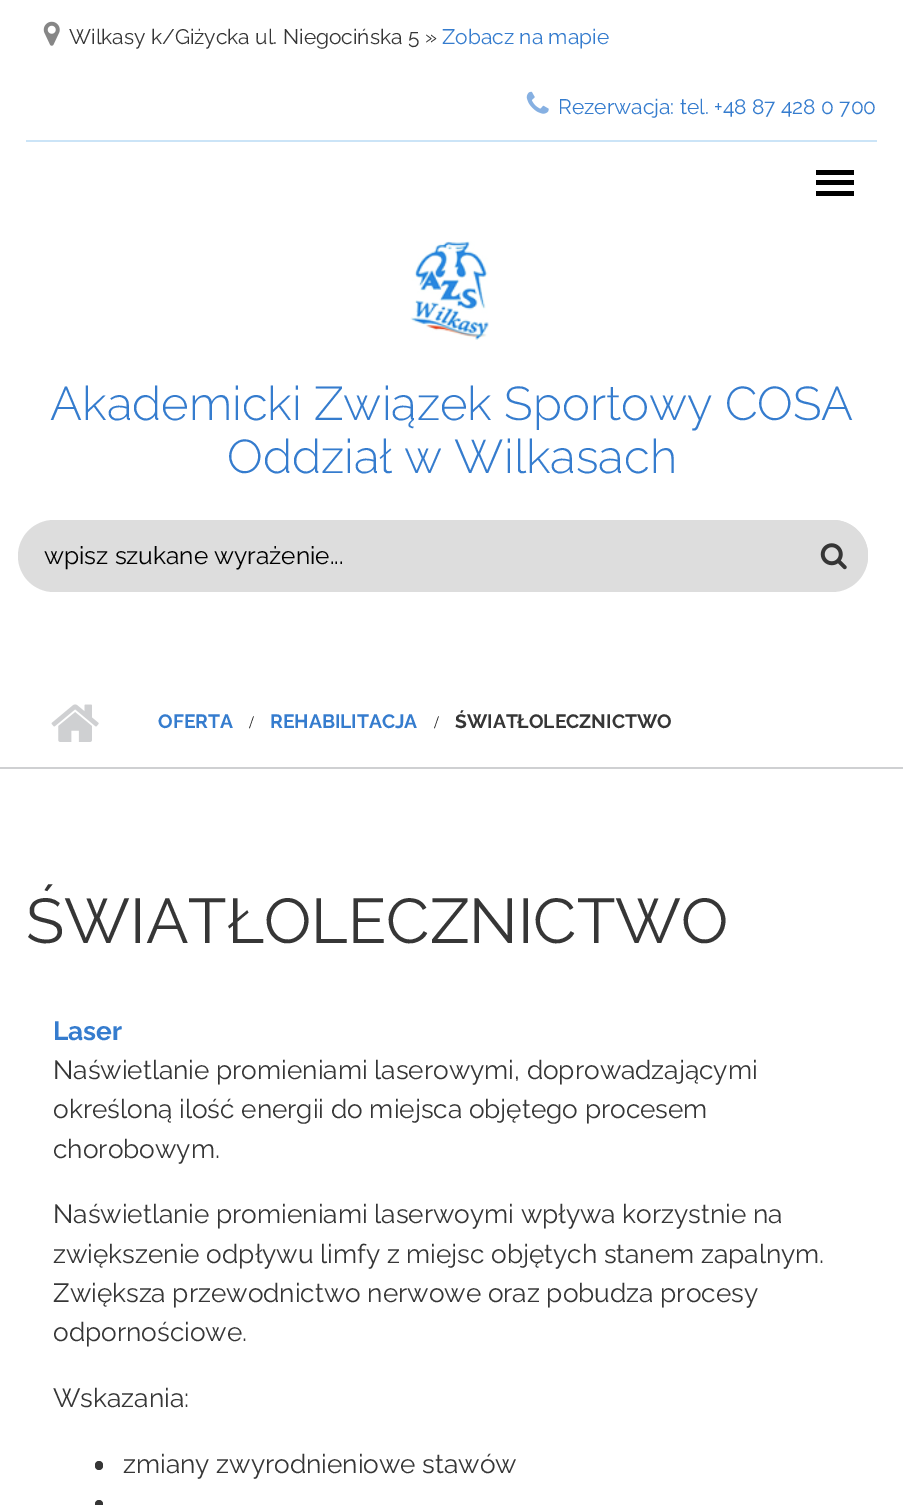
%!PS-Adobe-3.0
%%BoundingBox: 0 0 903 1505
%%LanguageLevel: 3
%%Pages: 1
%%EndComments
%%BeginProlog
/setink { dup -16 bitshift 255 div exch dup -8 bitshift 255 and 255 div exch 255 and 255 div setrgbcolor } def
/usefont { [ exch dup neg 0 0 3 -1 roll 0 0 ] selectfont } def
/disc { newpath 0 360 arc closepath } def
/rrect { 5 dict begin { /r /h /w /y /x } { exch def } forall
  x r add y moveto x w add y 2 copy h add r arct x w add y h add x 1 index r arct
  x y h add x y r arct x y 2 copy exch w add exch r arct closepath end } def
/drawimage { 5 dict begin { /h /w /y /x /name } { exch def } forall
  gsave x y translate w h scale
  w h 8 [w 0 0 h 0 0] name (r) file false 3 colorimage grestore end } def
%%EndProlog
%%BeginSetup
<< /PageSize [903 1505] >> setpagedevice
%%EndSetup
%%Page: 1 1
0 1505 translate 1 -1 scale
4 setmiterlimit
16#FFFFFF setink
0 0 903 1505 rectfill
16#CBE4F7 setink
26 140 851 2 rectfill
(img1.raw) 43 21 17 25 drawimage
/Raleway-Regular 21 usefont
16#363636 setink
69 44 moveto (Wilkasy k/Giżycka ul. Niegocińska 5 ») show
16#357CCE setink
442 44 moveto (Zobacz na mapie) show
(img2.raw) 526 91 23 23 drawimage
558 114 moveto (Rezerwacja: tel. +48 87 428 0 700) show
[
    [816 170 38 5 16#000000]
    [816 180 38 5 16#000000]
    [816 191 38 5 16#000000]
] { aload pop setink rectfill } forall
(img3.raw) 410 241 79 99 drawimage
/Raleway-Light 47.25 usefont
16#357CCE setink
50 420 moveto (Akademicki Związek Sportowy COSA) show
227 473 moveto (Oddział w Wilkasach) show
16#DDDDDD setink
833 555 35 disc fill
18 520 850 72 36 rrect fill
/Raleway-Regular 24.5 usefont
16#000000 setink
44 564 moveto (wpisz szukane wyrażenie...) show
(img4.raw) 820 543 27 27 drawimage
16#CFD0D2 setink
0 767 903 2 rectfill
(img5.raw) 51 704 48 38 drawimage
/Raleway-Bold 19.25 usefont
16#357CCE setink
158 728 moveto (OFERTA) show
/LiberationSerif-Regular 18 usefont
16#1E1E1E setink
249 728 moveto (/) show
/Raleway-Bold 19.25 usefont
16#357CCE setink
270 728 moveto (REHABILITACJA) show
/LiberationSerif-Regular 18 usefont
16#1E1E1E setink
434 728 moveto (/) show
/Raleway-Bold 19.25 usefont
16#363636 setink
455 728 moveto (ŚWIATŁOLECZNICTWO) show
/Raleway-Regular 63 usefont
26 943 moveto (ŚWIATŁOLECZNICTWO) show
/Raleway-Bold 26.25 usefont
16#357CCE setink
53 1040 moveto (Laser) show
/Raleway-Regular 26.25 usefont
16#363636 setink
[
    [(Naświetlanie promieniami laserowymi, doprowadzającymi) 53 1079]
    [(określoną ilość energii do miejsca objętego procesem) 53 1118]
    [(chorobowym.) 53 1158]
    [(Naświetlanie promieniami laserwoymi wpływa korzystnie na) 53 1223]
    [(zwiększenie odpływu limfy z miejsc objętych stanem zapalnym.) 53 1263]
    [(Zwiększa przewodnictwo nerwowe oraz pobudza procesy) 53 1302]
    [(odpornościowe.) 53 1341]
    [(Wskazania:) 53 1407]
] { aload pop moveto show } forall
95 1461 8 9 4 rrect fill
123 1473 moveto (zmiany zwyrodnieniowe stawów) show
95 1500 8 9 4 rrect fill
showpage
%%EOF
